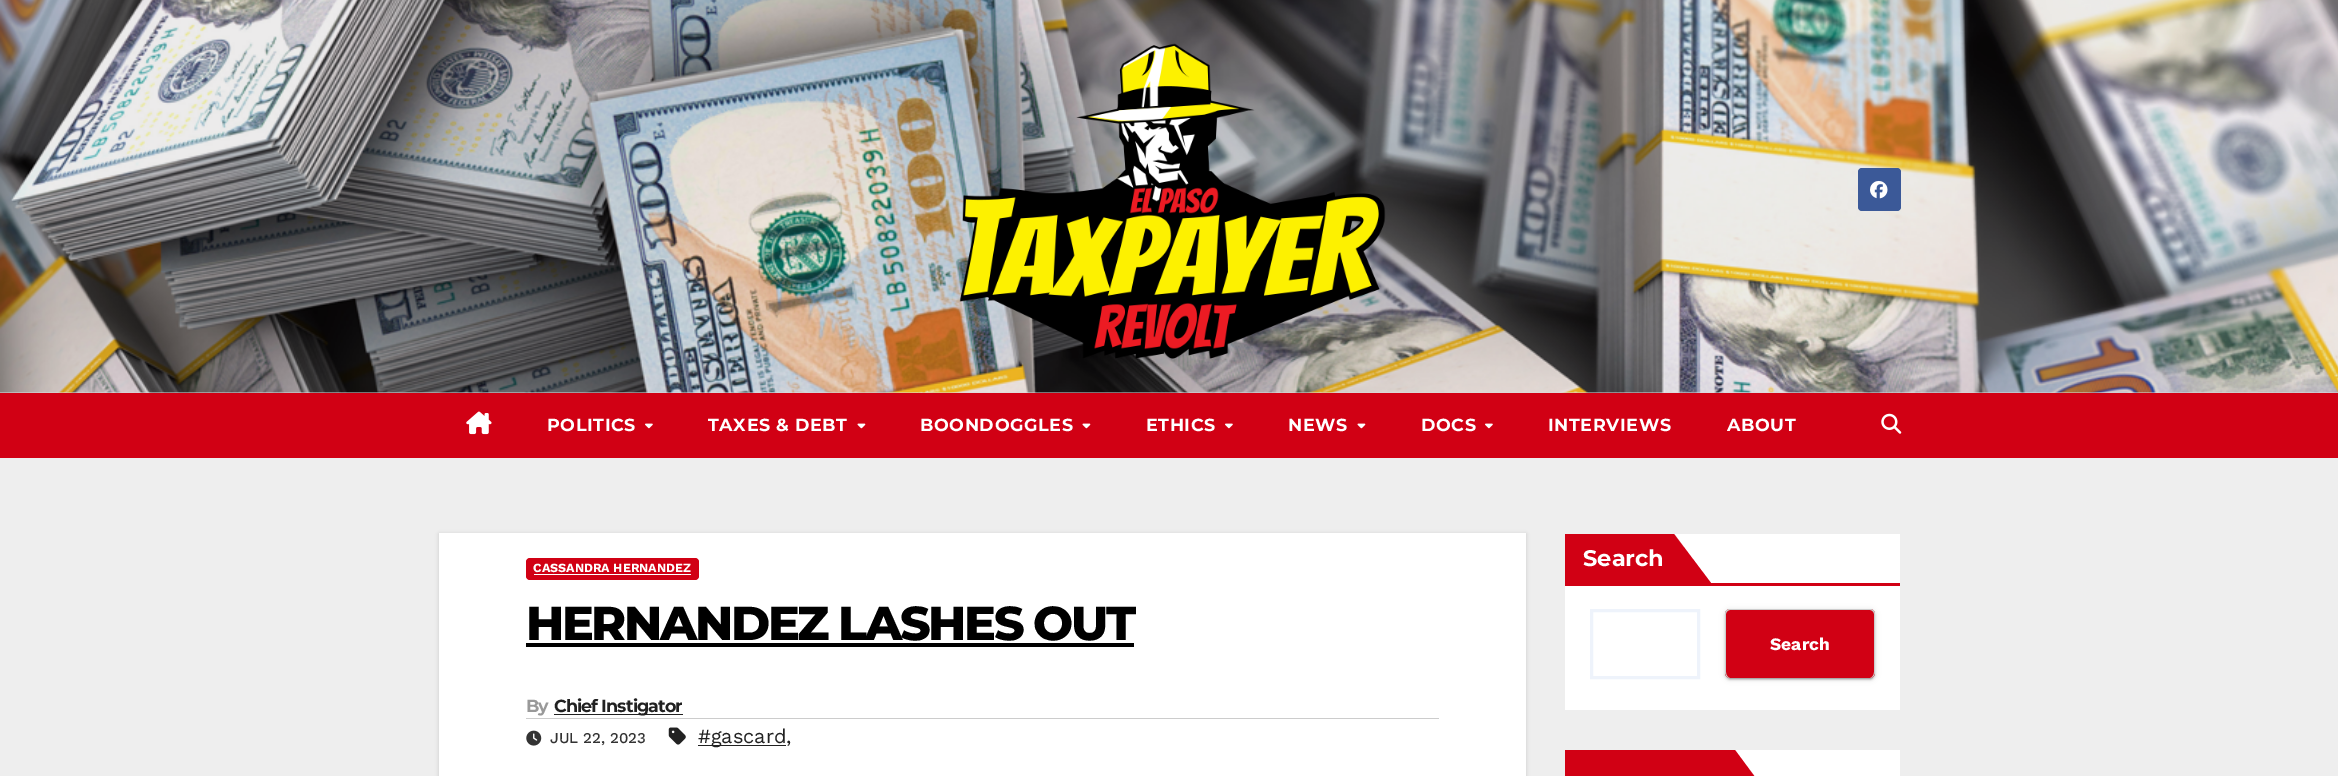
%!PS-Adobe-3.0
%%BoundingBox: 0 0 2338 776
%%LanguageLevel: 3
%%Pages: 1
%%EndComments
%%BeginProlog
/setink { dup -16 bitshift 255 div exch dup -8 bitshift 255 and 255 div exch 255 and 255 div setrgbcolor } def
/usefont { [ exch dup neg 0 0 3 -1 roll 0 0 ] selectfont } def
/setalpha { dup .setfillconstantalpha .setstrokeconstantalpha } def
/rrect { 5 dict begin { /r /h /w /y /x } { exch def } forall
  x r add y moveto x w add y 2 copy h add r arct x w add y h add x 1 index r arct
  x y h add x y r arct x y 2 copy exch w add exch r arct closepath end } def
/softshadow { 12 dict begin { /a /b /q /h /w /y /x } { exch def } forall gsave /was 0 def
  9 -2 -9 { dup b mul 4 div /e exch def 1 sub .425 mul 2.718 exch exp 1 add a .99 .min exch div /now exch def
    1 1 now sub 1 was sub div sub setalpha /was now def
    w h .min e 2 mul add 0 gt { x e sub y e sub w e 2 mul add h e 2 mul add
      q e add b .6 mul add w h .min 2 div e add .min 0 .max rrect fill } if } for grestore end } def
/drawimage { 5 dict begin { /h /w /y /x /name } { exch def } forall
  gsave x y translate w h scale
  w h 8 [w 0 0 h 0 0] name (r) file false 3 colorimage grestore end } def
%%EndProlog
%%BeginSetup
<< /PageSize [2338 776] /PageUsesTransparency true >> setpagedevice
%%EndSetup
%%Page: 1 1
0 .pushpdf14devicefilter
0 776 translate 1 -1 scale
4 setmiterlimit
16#EEEEEE setink
0 0 2338 776 rectfill
16#DCDBDC setink
0 392 2338 1 rectfill
(img1.raw) 0 0 2338 393 drawimage
(img2.raw) 959 43 427 316 drawimage
16#3B5998 setink
1858 168 43 43 4 rrect fill
(img3.raw) 1870 180 18 19 drawimage
16#D10014 setink
0 393 2338 65 rectfill
(img4.raw) 466 411 26 24 drawimage
/Montserrat-Bold 17.5 usefont
16#FFFFFF setink
547 431 moveto 0.6 0 (POLITICS) ashow
(img5.raw) 645 423 8 6 drawimage
708 431 moveto 0.6 0 (TAXES & DEBT) ashow
(img6.raw) 857 423 9 6 drawimage
920 431 moveto 0.6 0 (BOONDOGGLES) ashow
(img6.raw) 1082 423 9 6 drawimage
1146 431 moveto 0.6 0 (ETHICS) ashow
(img5.raw) 1225 423 8 6 drawimage
1288 431 moveto 0.6 0 (NEWS) ashow
(img6.raw) 1357 423 9 6 drawimage
1421 431 moveto 0.6 0 (DOCS) ashow
(img5.raw) 1485 423 8 6 drawimage
1548 431 moveto 0.6 0 (INTERVIEWS) ashow
1727 431 moveto 0.6 0 (ABOUT) ashow
(img7.raw) 1881 413 21 21 drawimage
16#000000 setink
439 534 1087 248 0 2 0.15 softshadow
16#FFFFFF setink
439 533 1087 243 rectfill
16#D10014 setink
526 558 173 22 4 rrect fill
/WorkSans-Bold 12.5 usefont
16#FFFFFF setink
533 572 moveto (CASSANDRA HERNANDEZ) show
534 574 157 1 rectfill
/Montserrat-ExtraBold 47.5 usefont
16#000000 setink
526 640 moveto -2.4 0 (HERNANDEZ LASHES OUT) ashow
526 643 608 4 rectfill
16#CCCCCC setink
526 718 913 1 rectfill
/Montserrat-Bold 17.5 usefont
16#999999 setink
526 712 moveto -0.9 0 (By) ashow
16#212121 setink
554 714 129 1 rectfill
554 712 moveto -0.9 0 (Chief Instigator) ashow
(img8.raw) 526 730 16 16 drawimage
/WorkSans-Medium 15 usefont
16#333333 setink
550 743 moveto (JUL 22, 2023) show
(img9.raw) 668 727 18 18 drawimage
16#212121 setink
698 745 88 1 rectfill
/WorkSans-Regular 20 usefont
698 743 moveto (#gascard) show
786 743 moveto (,) show
16#FFFFFF setink
1565 534 335 176 rectfill
16#D10014 setink
1565 534 109 49 rectfill
/Montserrat-Bold 22.5 usefont
16#FFFFFF setink
1583 566 moveto (Search) show
16#D10014 setink
1711 583 moveto 1674 534 lineto 1674 583 lineto closepath fill
1565 583 335 3 rectfill
16#EEF3FB setink
3 setlinewidth
1591.5 610.5 107 67 rectstroke
16#000000 setink
1725 610 150 69 5 3 0.12 softshadow
1728 615 145 64 2.5 0.5 0.2 softshadow
1725 611 150 69 5 1 0.14 softshadow
16#D10014 setink
1725 609 150 69 5 rrect fill
16#CCCCCC setink
1730 609 moveto 1870 609 lineto 1873 609 1875 611 1875 614 curveto 1875 672 lineto 1875 675 1873 678 1870 678 curveto 1730 678 lineto 1727 678 1725 675 1725 672 curveto 1725 614 lineto 1725 611 1727 609 1730 609 curveto closepath 1730 610 moveto 1870 610 lineto 1872 610 1874 612 1874 614 curveto 1874 672 lineto 1874 675 1872 678 1870 678 curveto 1730 678 lineto 1728 678 1726 675 1726 672 curveto 1726 614 lineto 1726 612 1728 610 1730 610 curveto closepath eofill
/WorkSans-Bold 17.5 usefont
16#FFFFFF setink
1770 650 moveto (Search) show
1735 750 165 26 rectfill
16#D10014 setink
1565 750 170 26 rectfill
1735 750 moveto 1735 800 lineto 1772 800 lineto closepath fill
.poppdf14devicefilter showpage
%%EOF
